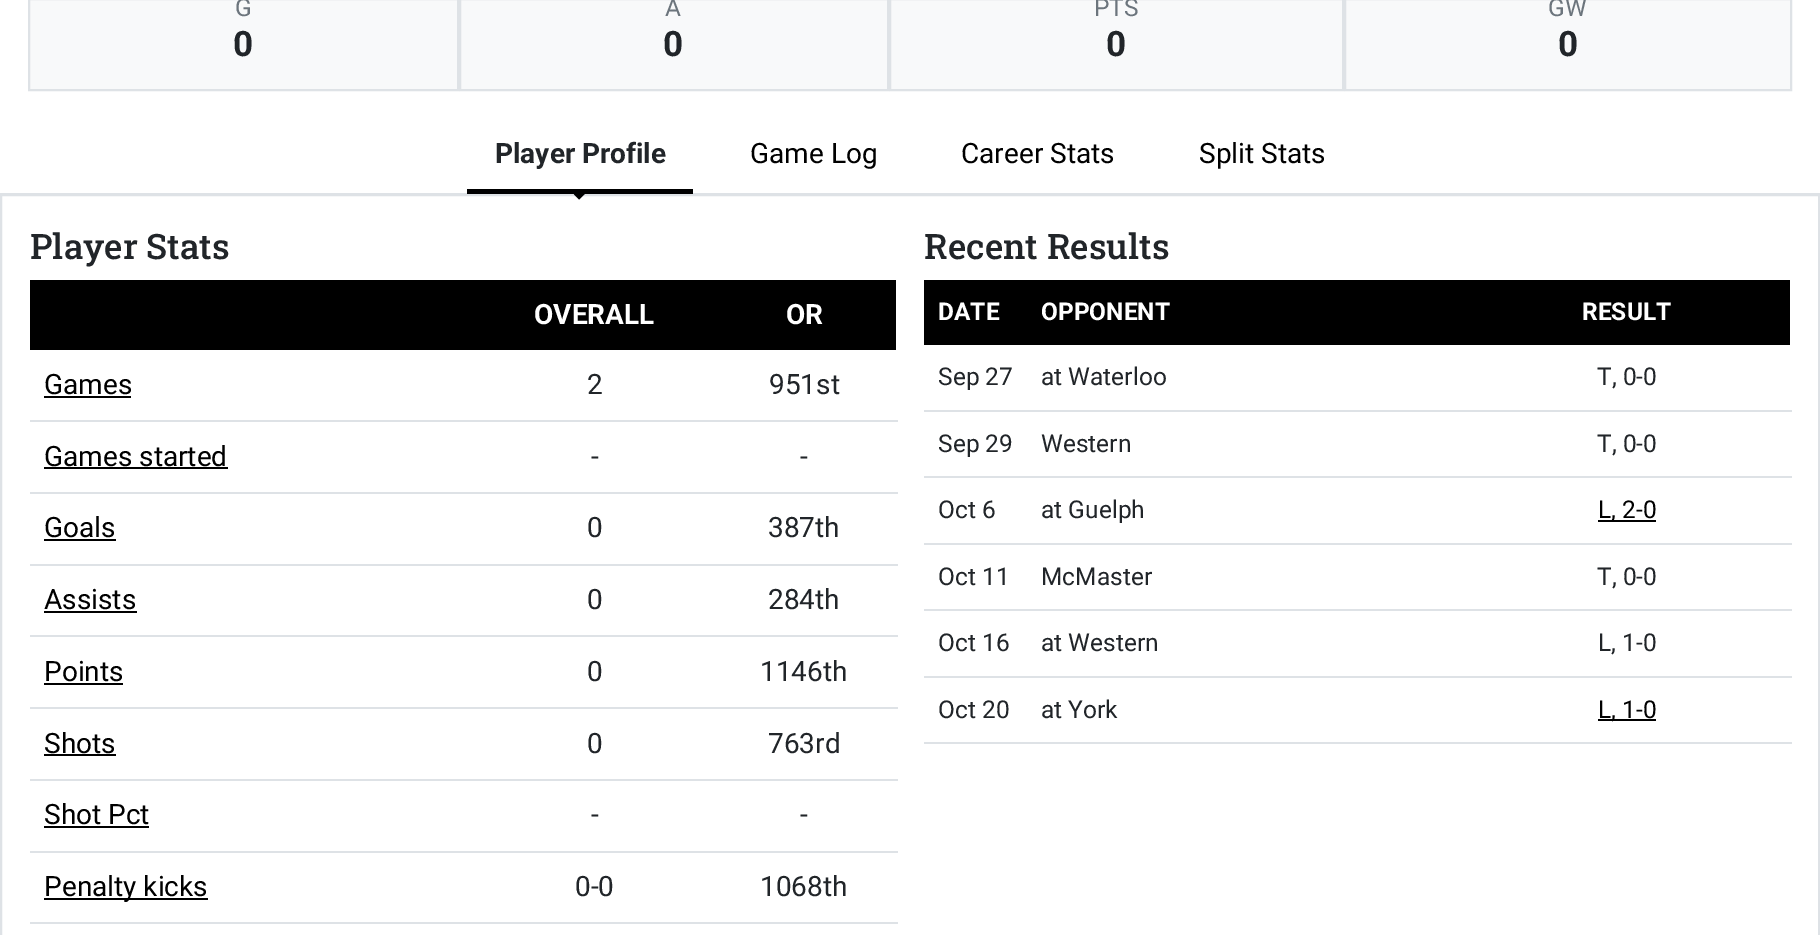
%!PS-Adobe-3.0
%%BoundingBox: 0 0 1820 935
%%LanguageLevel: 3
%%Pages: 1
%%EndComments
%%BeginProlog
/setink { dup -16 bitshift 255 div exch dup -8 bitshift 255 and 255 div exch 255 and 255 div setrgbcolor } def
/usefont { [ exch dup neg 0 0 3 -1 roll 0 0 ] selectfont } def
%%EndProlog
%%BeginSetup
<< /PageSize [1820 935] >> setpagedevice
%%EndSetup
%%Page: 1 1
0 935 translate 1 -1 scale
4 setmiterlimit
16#FFFFFF setink
0 0 1820 935 rectfill
16#F8F9FA setink
30 0 1760 89 rectfill
16#DEE2E6 setink
2 setlinewidth
29 -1 429 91 rectstroke
/Roboto-Regular 24.5 usefont
16#6C757D setink
235 16 moveto (G) show
/Roboto-Bold 35 usefont
16#212529 setink
233 56 moveto (0) show
16#DEE2E6 setink
460 -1 428 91 rectstroke
/Roboto-Regular 24.5 usefont
16#6C757D setink
665 16 moveto (A) show
/Roboto-Bold 35 usefont
16#212529 setink
663 56 moveto (0) show
16#DEE2E6 setink
890 -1 453 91 rectstroke
/Roboto-Regular 24.5 usefont
16#6C757D setink
1094 16 moveto (PTS) show
/Roboto-Bold 35 usefont
16#212529 setink
1106 56 moveto (0) show
16#DEE2E6 setink
1345 -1 446 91 rectstroke
/Roboto-Regular 24.5 usefont
16#6C757D setink
1548 16 moveto (GW) show
/Roboto-Bold 35 usefont
16#212529 setink
1558 56 moveto (0) show
16#DEE2E6 setink
0 193 1820 1 rectfill
16#000000 setink
467 189 226 5 rectfill
/Roboto-Bold 28 usefont
16#212529 setink
495 163 moveto (Player Profile) show
16#DEE2E6 setink
1 195 1818 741 rectstroke
16#000000 setink
569 189 moveto 590 189 lineto 579 199.5 lineto closepath fill
/Roboto-Regular 28 usefont
[
    [(Game Log) 750 163]
    [(Career Stats) 961 163]
    [(Split Stats) 1199 163]
] { aload pop moveto show } forall
/RobotoSlab-Medium 35 usefont
16#212529 setink
30 259 moveto (Player Stats) show
16#000000 setink
30 280 866 70 rectfill
/Roboto-Bold 28 usefont
16#FFFFFF setink
534 324 moveto (OVERALL) show
786 324 moveto (OR) show
/Roboto-Regular 28 usefont
16#000000 setink
44 394 moveto (Games) show
44 396 87 2 rectfill
16#212529 setink
587 394 moveto (2) show
16#DEE2E6 setink
30 420 868 2 rectfill
16#212529 setink
769 394 moveto (951st) show
16#000000 setink
44 466 moveto (Games started) show
44 467 184 2 rectfill
16#212529 setink
591 466 moveto (-) show
16#DEE2E6 setink
30 492 868 2 rectfill
16#212529 setink
800 466 moveto (-) show
16#000000 setink
44 537 moveto (Goals) show
44 539 72 2 rectfill
16#212529 setink
587 537 moveto (0) show
16#DEE2E6 setink
30 564 868 2 rectfill
16#212529 setink
768 537 moveto (387th) show
16#000000 setink
44 609 moveto (Assists) show
44 611 93 2 rectfill
16#212529 setink
587 609 moveto (0) show
16#DEE2E6 setink
30 635 868 2 rectfill
16#212529 setink
768 609 moveto (284th) show
16#000000 setink
44 681 moveto (Points) show
44 683 79 2 rectfill
16#212529 setink
587 681 moveto (0) show
16#DEE2E6 setink
30 707 868 2 rectfill
16#212529 setink
760 681 moveto (1146th) show
16#000000 setink
44 753 moveto (Shots) show
44 754 72 2 rectfill
16#212529 setink
587 753 moveto (0) show
16#DEE2E6 setink
30 779 868 2 rectfill
16#212529 setink
768 753 moveto (763rd) show
16#000000 setink
44 824 moveto (Shot Pct) show
44 826 105 2 rectfill
16#212529 setink
591 824 moveto (-) show
16#DEE2E6 setink
30 851 868 2 rectfill
16#212529 setink
800 824 moveto (-) show
16#000000 setink
44 898 164 2 rectfill
44 896 moveto (Penalty kicks) show
16#212529 setink
575 896 moveto (0-0) show
16#DEE2E6 setink
30 922 868 2 rectfill
16#212529 setink
760 896 moveto (1068th) show
/RobotoSlab-Medium 35 usefont
924 259 moveto (Recent Results) show
16#000000 setink
924 280 866 65 rectfill
/Roboto-Bold 24.5 usefont
16#FFFFFF setink
[
    [(DATE) 938 320]
    [(OPPONENT) 1041 320]
    [(RESULT) 1582 320]
] { aload pop moveto show } forall
/Roboto-Regular 24.5 usefont
16#212529 setink
938 385 moveto (Sep 27) show
1041 385 moveto (at Waterloo) show
16#DEE2E6 setink
924 410 868 2 rectfill
16#212529 setink
[
    [(T, 0-0) 1597 385]
    [(Sep 29) 938 452]
    [(Western) 1041 452]
] { aload pop moveto show } forall
16#DEE2E6 setink
924 476 868 2 rectfill
16#212529 setink
[
    [(T, 0-0) 1597 452]
    [(Oct 6) 938 518]
    [(at Guelph) 1041 518]
] { aload pop moveto show } forall
16#DEE2E6 setink
924 543 868 2 rectfill
16#000000 setink
1598 520 58 2 rectfill
1598 518 moveto (L, 2-0) show
16#212529 setink
938 585 moveto (Oct 11) show
1041 585 moveto (McMaster) show
16#DEE2E6 setink
924 609 868 2 rectfill
16#212529 setink
[
    [(T, 0-0) 1597 585]
    [(Oct 16) 938 651]
    [(at Western) 1041 651]
] { aload pop moveto show } forall
16#DEE2E6 setink
924 676 868 2 rectfill
16#212529 setink
[
    [(L, 1-0) 1598 651]
    [(Oct 20) 938 718]
    [(at York) 1041 718]
] { aload pop moveto show } forall
16#DEE2E6 setink
924 742 868 2 rectfill
16#000000 setink
1598 719 58 2 rectfill
1598 718 moveto (L, 1-0) show
showpage
%%EOF
